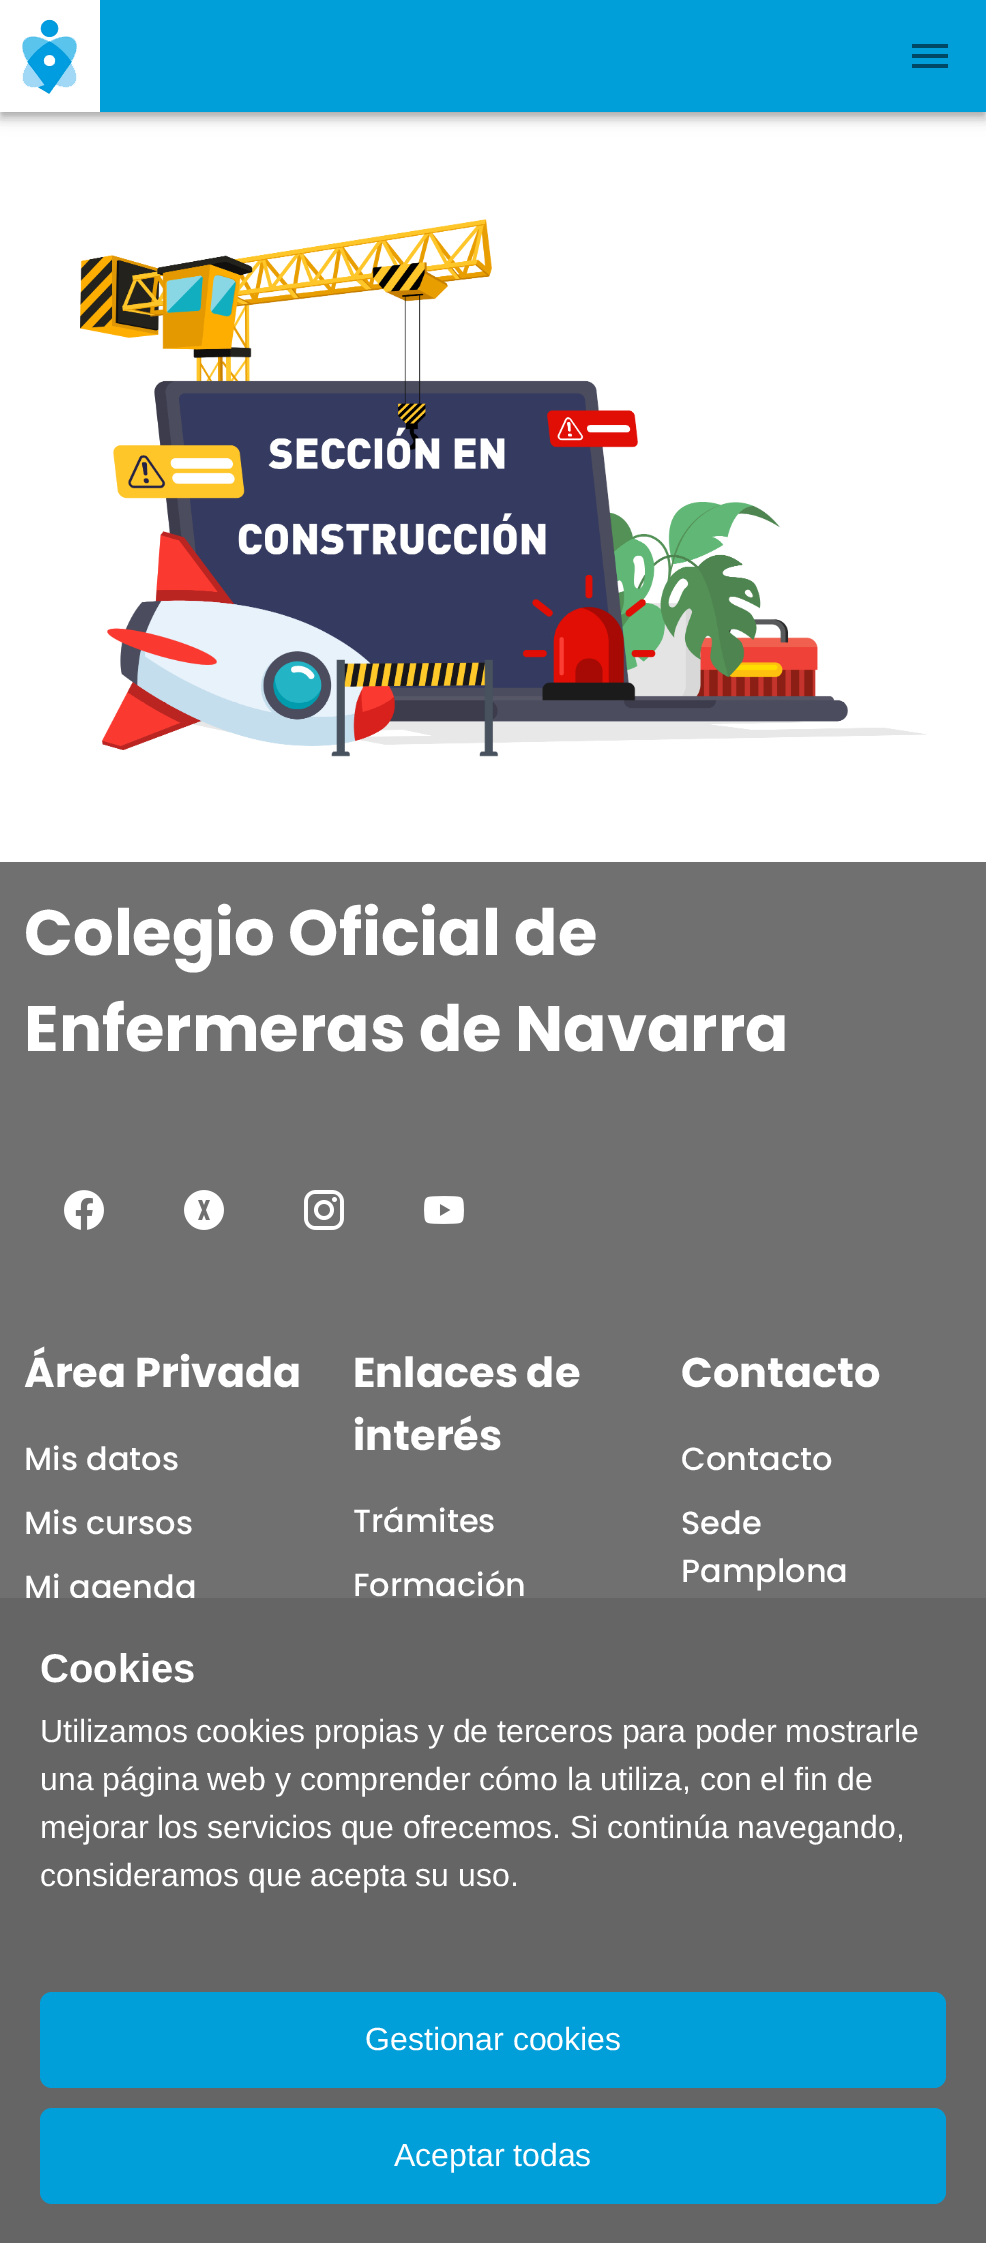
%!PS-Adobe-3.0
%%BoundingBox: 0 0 986 2243
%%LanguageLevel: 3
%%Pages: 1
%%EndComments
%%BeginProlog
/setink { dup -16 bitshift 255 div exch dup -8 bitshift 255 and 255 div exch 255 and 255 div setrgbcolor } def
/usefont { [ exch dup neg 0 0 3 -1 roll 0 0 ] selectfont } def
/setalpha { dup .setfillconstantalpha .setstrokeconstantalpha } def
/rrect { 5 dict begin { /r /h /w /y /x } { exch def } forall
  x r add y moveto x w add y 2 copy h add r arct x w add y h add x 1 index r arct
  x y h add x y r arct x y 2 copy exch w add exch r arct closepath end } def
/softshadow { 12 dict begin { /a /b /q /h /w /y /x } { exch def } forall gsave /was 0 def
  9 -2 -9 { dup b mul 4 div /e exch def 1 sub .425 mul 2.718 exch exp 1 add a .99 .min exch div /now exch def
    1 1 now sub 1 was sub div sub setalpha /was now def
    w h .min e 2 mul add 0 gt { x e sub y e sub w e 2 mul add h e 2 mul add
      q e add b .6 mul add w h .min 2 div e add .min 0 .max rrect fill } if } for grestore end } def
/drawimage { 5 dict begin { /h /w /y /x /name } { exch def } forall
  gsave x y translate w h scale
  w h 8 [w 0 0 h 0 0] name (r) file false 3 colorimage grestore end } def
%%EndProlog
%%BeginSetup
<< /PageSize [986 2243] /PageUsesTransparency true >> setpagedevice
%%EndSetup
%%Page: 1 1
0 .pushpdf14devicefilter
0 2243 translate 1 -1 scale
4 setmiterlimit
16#FFFFFF setink
0 0 986 2243 rectfill
16#000000 setink
0 2 986 112 0 10 0.12 softshadow
0 8 986 112 0 5 0.14 softshadow
2 6 982 108 0 4 0.2 softshadow
16#009FDA setink
100 0 886 112 rectfill
16#FFFFFF setink
0 0 100 112 rectfill
(img1.raw) 22 19 55 75 drawimage
16#004964 setink
912 44 moveto 948 44 lineto 948 48 lineto 912 48 lineto closepath 912 54 moveto 948 54 lineto 948 58 lineto 912 58 lineto closepath 912 64 moveto 948 64 lineto 948 68 lineto 912 68 lineto closepath fill
(img2.raw) 80 219 847 538 drawimage
16#707070 setink
0 862 986 736 rectfill
/Poppins-Bold 64 usefont
16#FFFFFF setink
24 955 moveto (Colegio Oficial de) show
24 1051 moveto (Enfermeras de Navarra) show
(img3.raw) 64 1190 40 40 drawimage
(img4.raw) 184 1190 40 40 drawimage
(img5.raw) 304 1190 40 40 drawimage
(img6.raw) 424 1196 40 28 drawimage
/Poppins-Bold 41.5 usefont
24 1387 moveto (Área Privada) show
/Poppins-Medium 32 usefont
[
    [(Mis datos) 24 1470]
    [(Mis cursos) 24 1534]
    [(Mi agenda) 24 1598]
] { aload pop moveto show } forall
/Poppins-Bold 41.5 usefont
353 1387 moveto (Enlaces de) show
353 1450 moveto (interés) show
/Poppins-Medium 32 usefont
353 1532 moveto (Trámites) show
353 1596 moveto (Formación) show
/Poppins-Bold 41.5 usefont
681 1387 moveto (Contacto) show
/Poppins-Medium 32 usefont
[
    [(Contacto) 681 1470]
    [(Sede) 681 1534]
    [(Pamplona) 681 1582]
] { aload pop moveto show } forall
16#656565 setink
0 1598 986 645 rectfill
/LiberationSans-Bold 40 usefont
16#FFFFFF setink
40 1682 moveto (Cookies) show
/LiberationSans-Regular 32 usefont
[
    [(Utilizamos cookies propias y de terceros para poder mostrarle) 40 1742]
    [(una página web y comprender cómo la utiliza, con el fin de) 40 1790]
    [(mejorar los servicios que ofrecemos. Si continúa navegando,) 40 1838]
    [(consideramos que acepta su uso.) 40 1886]
] { aload pop moveto show } forall
16#009FDA setink
40 1992 906 96 12 rrect fill
16#FFFFFF setink
365 2050 moveto (Gestionar cookies) show
16#009FDA setink
40 2108 906 96 12 rrect fill
16#FFFFFF setink
394 2166 moveto (Aceptar todas) show
.poppdf14devicefilter showpage
%%EOF
